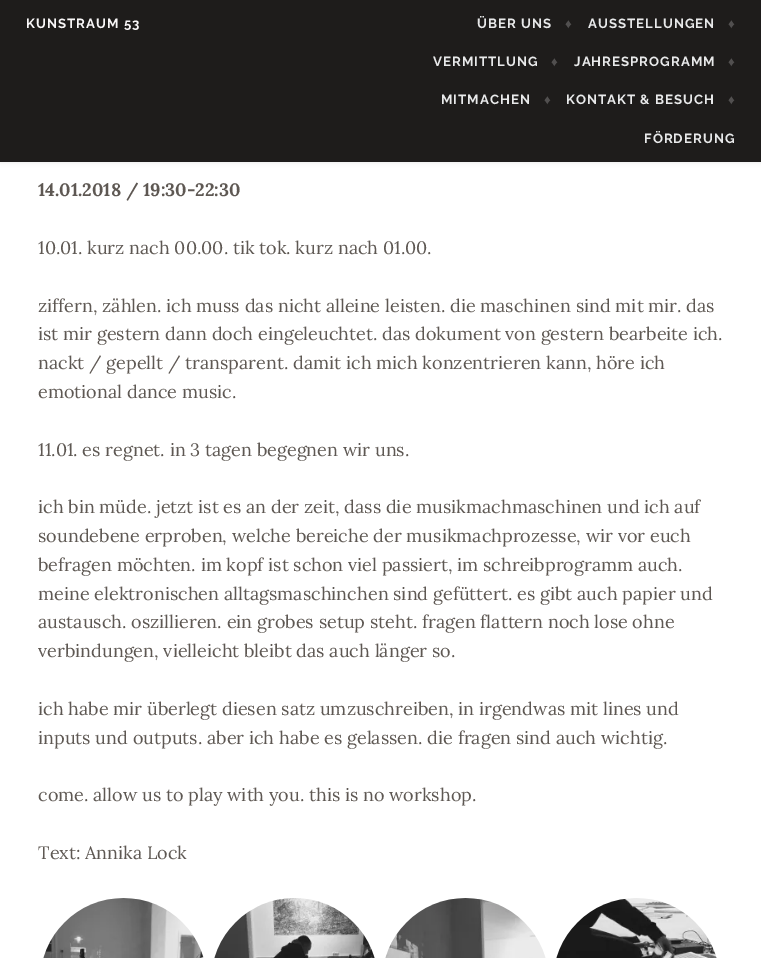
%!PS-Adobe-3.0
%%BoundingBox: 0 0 761 958
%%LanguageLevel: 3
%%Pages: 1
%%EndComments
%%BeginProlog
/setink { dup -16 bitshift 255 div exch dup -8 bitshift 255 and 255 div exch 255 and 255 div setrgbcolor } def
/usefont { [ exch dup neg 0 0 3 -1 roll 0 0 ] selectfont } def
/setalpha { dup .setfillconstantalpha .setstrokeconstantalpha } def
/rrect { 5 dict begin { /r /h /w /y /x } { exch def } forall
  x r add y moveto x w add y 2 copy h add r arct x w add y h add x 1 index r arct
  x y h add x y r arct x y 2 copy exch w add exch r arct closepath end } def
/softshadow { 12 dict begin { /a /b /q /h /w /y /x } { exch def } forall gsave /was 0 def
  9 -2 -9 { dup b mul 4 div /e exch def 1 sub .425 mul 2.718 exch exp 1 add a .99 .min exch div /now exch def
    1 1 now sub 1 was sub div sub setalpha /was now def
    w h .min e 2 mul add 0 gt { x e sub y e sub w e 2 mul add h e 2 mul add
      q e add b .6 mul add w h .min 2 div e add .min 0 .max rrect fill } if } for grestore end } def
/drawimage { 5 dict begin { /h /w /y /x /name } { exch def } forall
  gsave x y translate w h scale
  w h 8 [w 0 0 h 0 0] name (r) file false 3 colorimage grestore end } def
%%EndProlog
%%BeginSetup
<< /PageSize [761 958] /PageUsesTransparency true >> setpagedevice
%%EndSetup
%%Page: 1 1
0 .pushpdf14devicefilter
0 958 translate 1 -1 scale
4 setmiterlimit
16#FFFFFF setink
0 0 761 958 rectfill
16#000000 setink
0 0 761 162 0 2.5 0.1 softshadow
16#1E1C1B setink
0 0 761 162 rectfill
/Raleway-Bold 13.25 usefont
16#F9F7F8 setink
26 28 moveto 1 0 (KUNSTRAUM 53) ashow
16#E8E9EA setink
477 28 moveto 1 0 (ÜBER UNS) ashow
/LiberationSans-Bold 13.25 usefont
16#514F4F setink
565 28 moveto 1 0 (♦) ashow
/Raleway-Bold 13.25 usefont
16#E8E9EA setink
588 28 moveto 1 0 (AUSSTELLUNGEN) ashow
/LiberationSans-Bold 13.25 usefont
16#514F4F setink
728 28 moveto 1 0 (♦) ashow
/Raleway-Bold 13.25 usefont
16#E8E9EA setink
433 66 moveto 1 0 (VERMITTLUNG) ashow
/LiberationSans-Bold 13.25 usefont
16#514F4F setink
551 66 moveto 1 0 (♦) ashow
/Raleway-Bold 13.25 usefont
16#E8E9EA setink
574 66 moveto 1 0 (JAHRESPROGRAMM) ashow
/LiberationSans-Bold 13.25 usefont
16#514F4F setink
728 66 moveto 1 0 (♦) ashow
/Raleway-Bold 13.25 usefont
16#E8E9EA setink
441 104 moveto 1 0 (MITMACHEN) ashow
/LiberationSans-Bold 13.25 usefont
16#514F4F setink
544 104 moveto 1 0 (♦) ashow
/Raleway-Bold 13.25 usefont
16#E8E9EA setink
566 104 moveto 1 0 (KONTAKT & BESUCH) ashow
/LiberationSans-Bold 13.25 usefont
16#514F4F setink
728 104 moveto 1 0 (♦) ashow
/Raleway-Bold 13.25 usefont
16#E8E9EA setink
644 143 moveto 1 0 (FÖRDERUNG) ashow
/Lora-Bold 18 usefont
16#5E5853 setink
38 196 moveto (14.01.2018 / 19:30-22:30) show
/Lora-Regular 18 usefont
[
    [(10.01. kurz nach 00.00. tik tok. kurz nach 01.00.) 38 254]
    [(ziffern, zählen. ich muss das nicht alleine leisten. die maschinen sind mit mir. das) 38 312]
    [(ist mir gestern dann doch eingeleuchtet. das dokument von gestern bearbeite ich.) 38 340]
    [(nackt / gepellt / transparent. damit ich mich konzentrieren kann, höre ich) 38 369]
    [(emotional dance music.) 38 398]
    [(11.01. es regnet. in 3 tagen begegnen wir uns.) 38 456]
    [(ich bin müde. jetzt ist es an der zeit, dass die musikmachmaschinen und ich auf) 38 513]
    [(soundebene erproben, welche bereiche der musikmachprozesse, wir vor euch) 38 542]
    [(befragen möchten. im kopf ist schon viel passiert, im schreibprogramm auch.) 38 571]
    [(meine elektronischen alltagsmaschinchen sind gefüttert. es gibt auch papier und) 38 600]
    [(austausch. oszillieren. ein grobes setup steht. fragen flattern noch lose ohne) 38 628]
    [(verbindungen, vielleicht bleibt das auch länger so.) 38 657]
    [(ich habe mir überlegt diesen satz umzuschreiben, in irgendwas mit lines und) 38 715]
    [(inputs und outputs. aber ich habe es gelassen. die fragen sind auch wichtig.) 38 744]
    [(come. allow us to play with you. this is no workshop.) 38 801]
    [(Text: Annika Lock) 38 859]
] { aload pop moveto show } forall
(img1.raw) 43 898 161 60 drawimage
(img2.raw) 214 898 161 60 drawimage
(img3.raw) 385 898 161 60 drawimage
(img4.raw) 556 898 161 60 drawimage
.poppdf14devicefilter showpage
%%EOF
